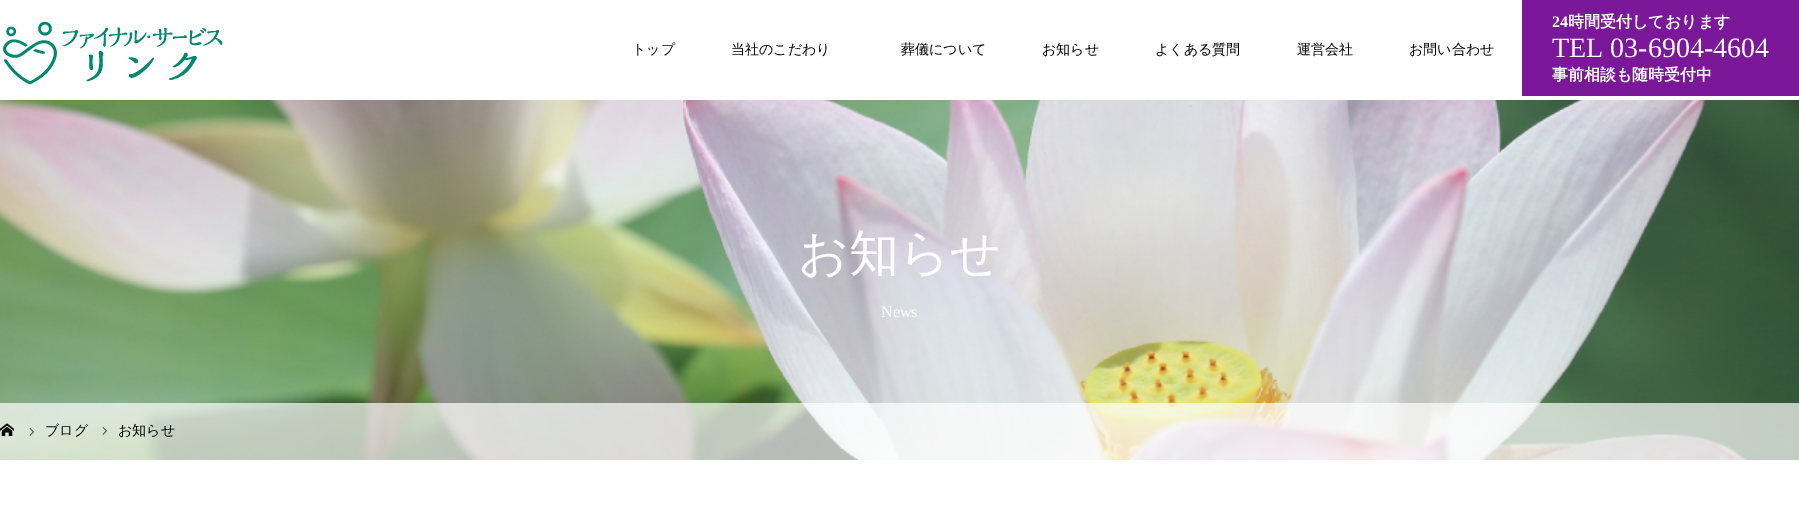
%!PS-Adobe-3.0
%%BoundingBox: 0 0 1799 505
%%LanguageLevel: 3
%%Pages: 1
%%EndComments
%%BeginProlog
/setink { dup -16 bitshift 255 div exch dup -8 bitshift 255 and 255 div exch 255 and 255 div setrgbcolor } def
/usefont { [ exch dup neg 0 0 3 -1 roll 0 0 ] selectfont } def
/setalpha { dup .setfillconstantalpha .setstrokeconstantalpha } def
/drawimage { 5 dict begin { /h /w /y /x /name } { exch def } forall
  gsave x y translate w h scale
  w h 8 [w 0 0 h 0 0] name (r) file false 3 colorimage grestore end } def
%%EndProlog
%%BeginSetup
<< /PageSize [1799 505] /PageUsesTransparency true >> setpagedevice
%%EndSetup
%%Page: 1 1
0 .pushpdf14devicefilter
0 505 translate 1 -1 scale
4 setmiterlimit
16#FFFFFF setink
0 0 1799 505 rectfill
(img1.raw) 3 22 220 63 drawimage
/WenQuanYiZenHei-Medium 14 usefont
16#000000 setink
[
    [(トップ) 632 54]
    [(当社のこだわり) 731 54]
    [(葬儀について) 901 54]
    [(お知らせ) 1042 54]
    [(よくある質問) 1155 54]
    [(運営会社) 1297 54]
    [(お問い合わせ) 1409 54]
] { aload pop moveto show } forall
16#7A1899 setink
1522 0 277 96 rectfill
/LiberationSerif-Bold 16 usefont
16#FFFFFF setink
1552 27 moveto (24) show
/WenQuanYiZenHei-Bold 16 usefont
1568 27 moveto (時間受付しております) show
/LiberationSerif-Regular 28 usefont
1552 57 moveto (TEL 03-6904-4604) show
/WenQuanYiZenHei-Bold 16 usefont
1552 80 moveto (事前相談も随時受付中) show
(img2.raw) 0 100 1799 360 drawimage
/WenQuanYiZenHei-Medium 50 usefont
798 270 moveto (お知らせ) show
/LiberationSerif-Regular 16 usefont
881 317 moveto (News) show
0.7 setalpha
0 403 1799 57 rectfill
1 setalpha
(img3.raw) 0 423 14 13 drawimage
(img4.raw) 29 428 5 8 drawimage
/WenQuanYiZenHei-Medium 14 usefont
16#000000 setink
45 435 moveto (ブログ) show
(img5.raw) 102 427 5 8 drawimage
118 435 moveto (お知らせ) show
.poppdf14devicefilter showpage
%%EOF
